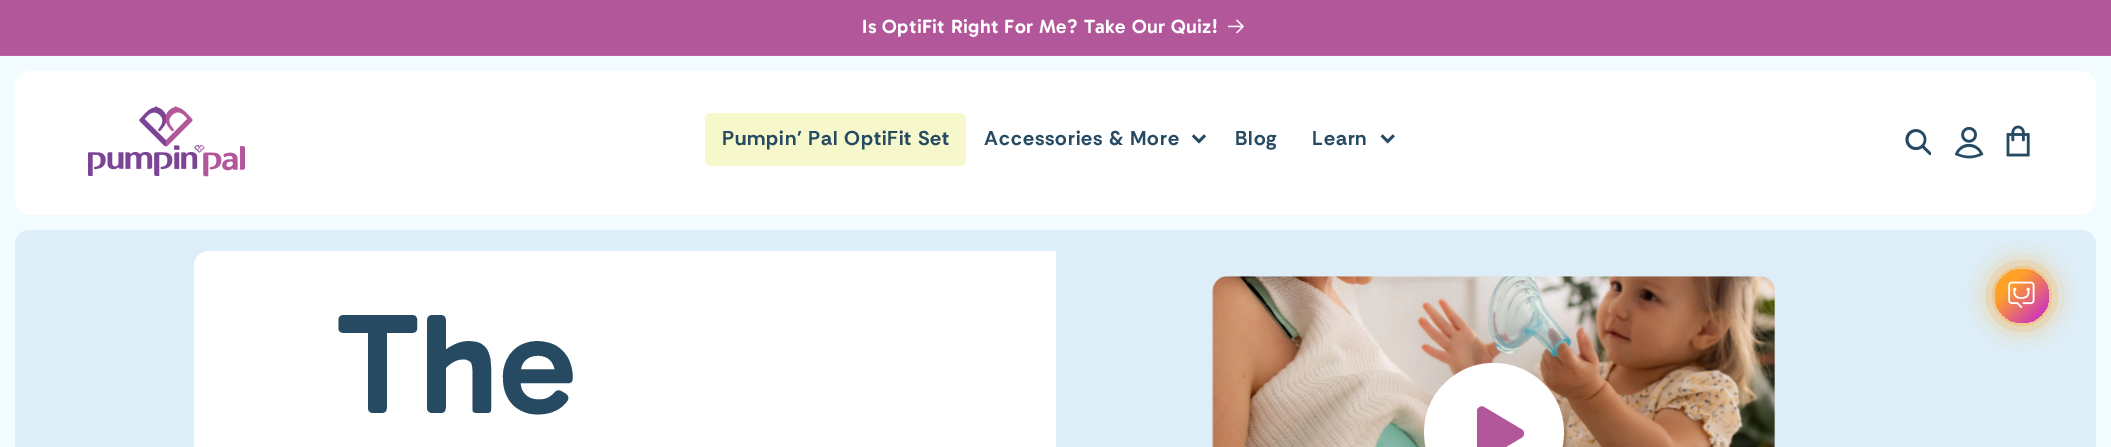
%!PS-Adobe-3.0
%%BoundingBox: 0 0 2111 447
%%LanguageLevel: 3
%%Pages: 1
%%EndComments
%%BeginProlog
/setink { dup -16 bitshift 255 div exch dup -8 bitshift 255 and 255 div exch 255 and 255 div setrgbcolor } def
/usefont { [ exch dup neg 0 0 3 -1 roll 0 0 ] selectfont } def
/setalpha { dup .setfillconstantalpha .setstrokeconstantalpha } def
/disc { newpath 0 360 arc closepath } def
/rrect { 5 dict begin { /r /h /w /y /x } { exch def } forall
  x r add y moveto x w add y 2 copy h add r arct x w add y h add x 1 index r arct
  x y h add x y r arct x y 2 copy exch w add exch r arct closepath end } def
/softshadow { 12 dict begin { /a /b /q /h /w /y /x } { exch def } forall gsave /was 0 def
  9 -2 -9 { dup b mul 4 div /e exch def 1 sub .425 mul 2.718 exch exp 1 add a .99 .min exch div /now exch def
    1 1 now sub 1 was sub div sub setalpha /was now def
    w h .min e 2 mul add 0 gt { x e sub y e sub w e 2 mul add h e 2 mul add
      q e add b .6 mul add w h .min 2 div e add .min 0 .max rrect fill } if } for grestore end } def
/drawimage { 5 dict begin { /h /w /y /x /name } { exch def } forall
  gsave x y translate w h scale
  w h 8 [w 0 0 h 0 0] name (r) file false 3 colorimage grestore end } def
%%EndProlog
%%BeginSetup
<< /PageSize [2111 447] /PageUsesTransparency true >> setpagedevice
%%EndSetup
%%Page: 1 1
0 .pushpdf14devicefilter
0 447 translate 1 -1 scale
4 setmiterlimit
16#F2FBFF setink
0 0 2111 447 rectfill
16#B3579B setink
0 0 2111 55 rectfill
16#B964A3 setink
0 55 2111 1 rectfill
/Gabarito-SemiBold 19.5 usefont
16#FFFFFF setink
862 33 moveto 0.4 0 (Is OptiFit Right For Me? Take Our Quiz!) ashow
(img1.raw) 1228 19 16 15 drawimage
15 71 2081 144 15 rrect fill
(img2.raw) 88 106 157 71 drawimage
16#F6F7CA setink
705 113 261 53 6 rrect fill
/RethinkSans-Bold 20.1 usefont
16#254A62 setink
722 145 moveto 0.9 0 (Pumpin' Pal OptiFit Set) ashow
984 145 moveto 0.9 0 (Accessories & More) ashow
(img3.raw) 1191 134 15 10 drawimage
1235 145 moveto 0.9 0 (Blog) ashow
1312 145 moveto 0.9 0 (Learn) ashow
(img4.raw) 1380 134 15 10 drawimage
(img5.raw) 1905 129 26 27 drawimage
(img6.raw) 1954 126 30 33 drawimage
(img7.raw) 2006 125 24 32 drawimage
16#DDEEF9 setink
15 230 2081 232 15 rrect fill
16#FFFFFF setink
209 251 moveto 1056 251 lineto 1056 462 lineto 209 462 lineto 200.5 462 194 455.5 194 447 curveto 194 266 lineto 194 257.5 200.5 251 209 251 curveto closepath fill
/Gabarito-SemiBold 144 usefont
16#254A62 setink
337 413 moveto 0.4 0 (The) ashow
(img8.raw) 1212 276 563 171 drawimage
16#FFFFFF setink
1494 363 moveto 1508 363 1521 367 1533 375 curveto 1590 413 1563 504 1494 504 curveto 1425 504 1398 413 1455 375 curveto 1466 367 1480 363 1494 363 curveto closepath fill
16#B3579B setink
1521 429 moveto 1525 431 1525 436 1521 438 curveto 1484 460 lineto 1480 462 1477 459 1477 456 curveto 1477 411 lineto 1477 408 1481 405 1484 407 curveto closepath fill
16#FFA028 setink
1995 269 54 54 27 12.5 1 softshadow
gsave 2022 296 27 disc clip newpath
<< /ShadingType 2 /ColorSpace /DeviceRGB /Coords [1995 269 2049 323] /Extend [true true] /Function << /FunctionType 3 /Domain [0 1] /Functions [<< /FunctionType 2 /Domain [0 1] /C0 [1 0.627 0.157] /C1 [1 0.627 0.157] /N 1 >> << /FunctionType 2 /Domain [0 1] /C0 [1 0.627 0.157] /C1 [0.761 0.114 0.875] /N 1 >>] /Bounds [0.3] /Encode [0 1 0 1] >> >> shfill grestore
(img9.raw) 2008 281 27 27 drawimage
.poppdf14devicefilter showpage
%%EOF
